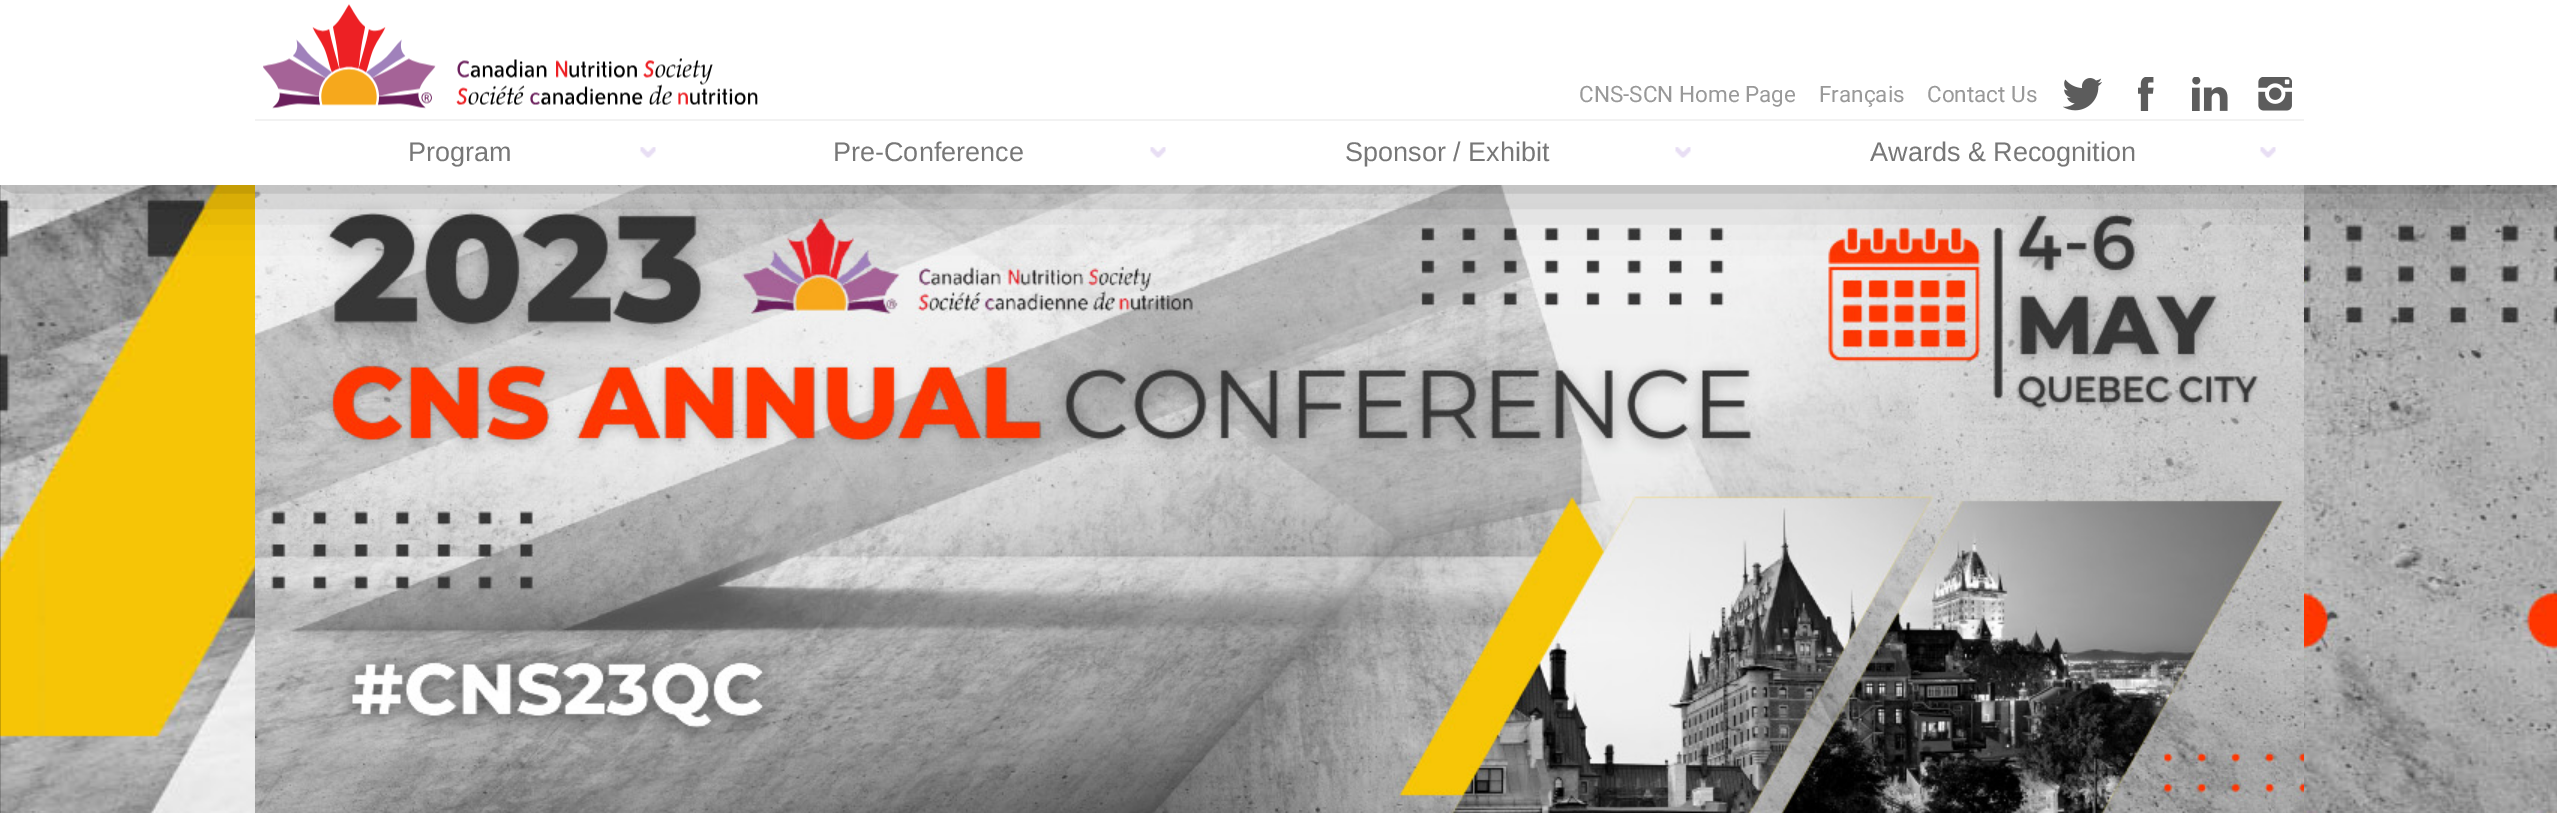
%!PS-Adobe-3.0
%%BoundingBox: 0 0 2557 813
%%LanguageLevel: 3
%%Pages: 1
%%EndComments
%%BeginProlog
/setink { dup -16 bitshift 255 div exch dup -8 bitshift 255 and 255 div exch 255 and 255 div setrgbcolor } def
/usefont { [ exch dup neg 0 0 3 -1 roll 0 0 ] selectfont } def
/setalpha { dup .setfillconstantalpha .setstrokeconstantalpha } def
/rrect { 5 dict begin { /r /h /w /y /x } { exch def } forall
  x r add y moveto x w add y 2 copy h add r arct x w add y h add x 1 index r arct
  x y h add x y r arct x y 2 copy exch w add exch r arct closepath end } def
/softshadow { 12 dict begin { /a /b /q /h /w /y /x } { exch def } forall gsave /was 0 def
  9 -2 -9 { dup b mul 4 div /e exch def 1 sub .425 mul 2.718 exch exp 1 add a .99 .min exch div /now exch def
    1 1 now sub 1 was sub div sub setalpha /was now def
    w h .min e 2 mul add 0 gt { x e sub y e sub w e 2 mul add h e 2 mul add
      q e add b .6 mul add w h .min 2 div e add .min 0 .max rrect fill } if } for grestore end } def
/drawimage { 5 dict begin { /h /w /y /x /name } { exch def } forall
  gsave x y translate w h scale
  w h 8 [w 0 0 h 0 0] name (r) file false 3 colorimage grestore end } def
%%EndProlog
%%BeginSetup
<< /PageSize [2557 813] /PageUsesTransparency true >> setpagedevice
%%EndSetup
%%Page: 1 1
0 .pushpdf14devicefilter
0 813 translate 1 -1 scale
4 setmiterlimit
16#FFFFFF setink
0 0 2557 813 rectfill
(img1.raw) 0 185 2557 628 drawimage
0.2 setalpha
16#000000 setink
0 185 1 628 rectfill
1 setalpha
(img8.raw) 255 185 2049 628 drawimage
0 2 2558 184 0 31 0.4 softshadow
16#FFFFFF setink
0 0 2557 185 rectfill
(img2.raw) 263 4 495 105 drawimage
/Roboto-Regular 22.5 usefont
16#999999 setink
[
    [(CNS-SCN Home Page) 1579 102]
    [(Français) 1819 102]
    [(Contact Us) 1927 102]
] { aload pop moveto show } forall
(img3.raw) 2063 78 39 33 drawimage
(img4.raw) 2138 77 16 34 drawimage
(img5.raw) 2192 77 36 34 drawimage
(img6.raw) 2258 77 34 34 drawimage
16#F2F2F2 setink
255 119 2049 2 rectfill
(img7.raw) 640 147 16 11 drawimage
/LiberationSans-Regular 27 usefont
16#777777 setink
408 161 moveto (Program) show
(img7.raw) 1150 147 16 11 drawimage
833 161 moveto (Pre-Conference) show
(img7.raw) 1675 147 16 11 drawimage
1345 161 moveto (Sponsor / Exhibit) show
(img7.raw) 2260 147 16 11 drawimage
1870 161 moveto (Awards & Recognition) show
.poppdf14devicefilter showpage
%%EOF
